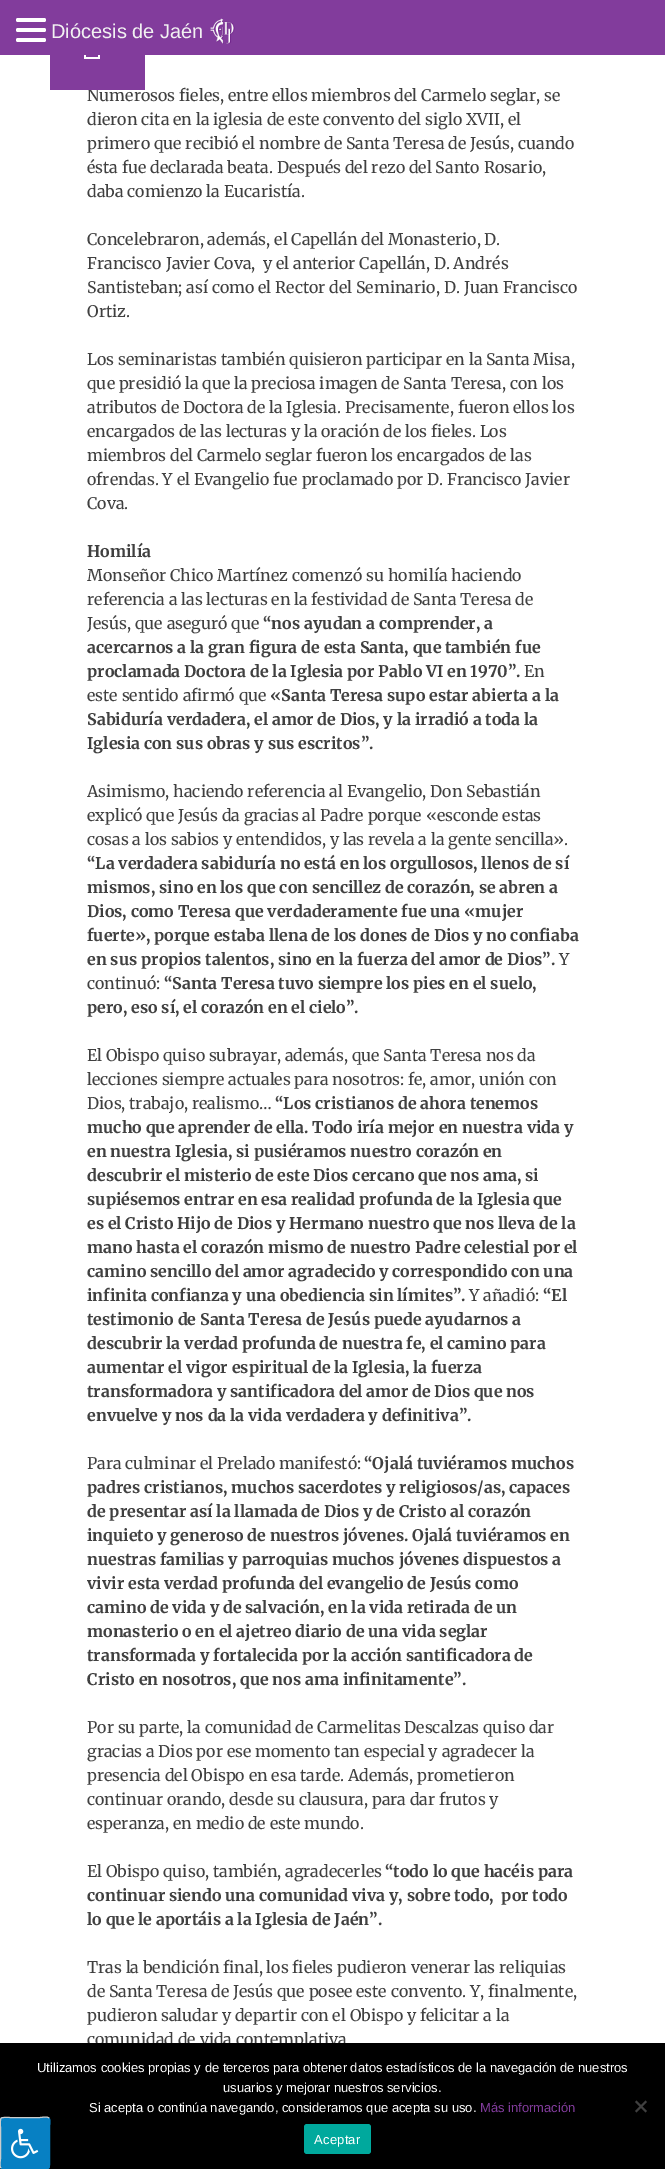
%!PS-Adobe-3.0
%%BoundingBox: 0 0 665 2169
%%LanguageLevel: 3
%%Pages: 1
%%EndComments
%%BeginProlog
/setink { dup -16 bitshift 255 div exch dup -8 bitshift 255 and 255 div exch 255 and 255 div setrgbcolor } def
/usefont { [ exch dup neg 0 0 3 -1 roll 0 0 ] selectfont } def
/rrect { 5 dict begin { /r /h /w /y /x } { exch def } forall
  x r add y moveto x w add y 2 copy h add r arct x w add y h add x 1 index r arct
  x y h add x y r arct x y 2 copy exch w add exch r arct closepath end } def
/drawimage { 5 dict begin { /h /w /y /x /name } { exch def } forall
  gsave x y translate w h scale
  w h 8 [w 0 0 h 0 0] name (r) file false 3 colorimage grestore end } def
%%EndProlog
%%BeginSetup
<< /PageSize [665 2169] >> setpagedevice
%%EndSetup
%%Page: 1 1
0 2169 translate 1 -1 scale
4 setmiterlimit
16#FFFFFF setink
0 0 665 2169 rectfill
/Merriweather-Regular 16 usefont
16#404040 setink
87 101 moveto (Numerosos fieles, entre ellos miembros del Carmelo seglar, se) show
16#823C9C setink
50 55 95 35 rectfill
16#FFFFFF setink
84 59 moveto 84 30.5 lineto 100 30.5 lineto 100 59 lineto closepath 86 57 moveto 98 57 lineto 98 32.5 lineto 86 32.5 lineto closepath fill
16#823C9C setink
0 0 665 55 rectfill
16#FFFFFF setink
16 18 30 4 2 rrect fill
16 28 30 4 2 rrect fill
16 38 30 4 2 rrect fill
/LiberationSans-Regular 20 usefont
16#F2F2F2 setink
51 38 moveto (Diócesis de Jaén) show
(img1.raw) 210 18 25 26 drawimage
/Merriweather-Regular 16 usefont
16#404040 setink
[
    [(dieron cita en la iglesia de este convento del siglo XVII, el) 87 125]
    [(primero que recibió el nombre de Santa Teresa de Jesús, cuando) 87 149]
    [(ésta fue declarada beata. Después del rezo del Santo Rosario,) 87 173]
    [(daba comienzo la Eucaristía.) 87 197]
    [(Concelebraron, además, el Capellán del Monasterio, D.) 87 245]
    [(Francisco Javier Cova,  y el anterior Capellán, D. Andrés) 87 269]
    [(Santisteban; así como el Rector del Seminario, D. Juan Francisco) 87 293]
    [(Ortiz.) 87 317]
    [(Los seminaristas también quisieron participar en la Santa Misa,) 87 365]
    [(que presidió la que la preciosa imagen de Santa Teresa, con los) 87 389]
    [(atributos de Doctora de la Iglesia. Precisamente, fueron ellos los) 87 413]
    [(encargados de las lecturas y la oración de los fieles. Los) 87 437]
    [(miembros del Carmelo seglar fueron los encargados de las) 87 461]
    [(ofrendas. Y el Evangelio fue proclamado por D. Francisco Javier) 87 485]
    [(Cova.) 87 509]
] { aload pop moveto show } forall
/Merriweather-Bold 16 usefont
87 557 moveto (Homilía) show
/Merriweather-Regular 16 usefont
[
    [(Monseñor Chico Martínez comenzó su homilía haciendo) 87 581]
    [(referencia a las lecturas en la festividad de Santa Teresa de) 87 605]
    [(Jesús, que aseguró que) 87 629]
] { aload pop moveto show } forall
/Merriweather-Bold 16 usefont
[
    [(“nos ayudan a comprender, a) 263 629]
    [(acercarnos a la gran figura de esta Santa, que también fue) 87 653]
    [(proclamada Doctora de la Iglesia por Pablo VI en 1970”.) 87 677]
] { aload pop moveto show } forall
/Merriweather-Regular 16 usefont
524 677 moveto (En) show
87 701 moveto (este sentido afirmó que) show
/Merriweather-Bold 16 usefont
[
    [(«Santa Teresa supo estar abierta a la) 270 701]
    [(Sabiduría verdadera, el amor de Dios, y la irradió a toda la) 87 725]
    [(Iglesia con sus obras y sus escritos”.) 87 749]
] { aload pop moveto show } forall
/Merriweather-Regular 16 usefont
[
    [(Asimismo, haciendo referencia al Evangelio, Don Sebastián) 87 797]
    [(explicó que Jesús da gracias al Padre porque «esconde estas) 87 821]
    [(cosas a los sabios y entendidos, y las revela a la gente sencilla».) 87 845]
] { aload pop moveto show } forall
/Merriweather-Bold 16 usefont
[
    [(“La verdadera sabiduría no está en los orgullosos, llenos de sí) 87 869]
    [(mismos, sino en los que con sencillez de corazón, se abren a) 87 893]
    [(Dios, como Teresa que verdaderamente fue una «mujer) 87 917]
    [(fuerte», porque estaba llena de los dones de Dios y no confiaba) 87 941]
    [(en sus propios talentos, sino en la fuerza del amor de Dios”.) 87 965]
] { aload pop moveto show } forall
/Merriweather-Regular 16 usefont
559 965 moveto (Y) show
87 989 moveto (continuó:) show
/Merriweather-Bold 16 usefont
164 989 moveto (“Santa Teresa tuvo siempre los pies en el suelo,) show
87 1013 moveto (pero, eso sí, el corazón en el cielo”.) show
/Merriweather-Regular 16 usefont
[
    [(El Obispo quiso subrayar, además, que Santa Teresa nos da) 87 1061]
    [(lecciones siempre actuales para nosotros: fe, amor, unión con) 87 1085]
    [(Dios, trabajo, realismo…) 87 1109]
] { aload pop moveto show } forall
/Merriweather-Bold 16 usefont
[
    [(“Los cristianos de ahora tenemos) 275 1109]
    [(mucho que aprender de ella. Todo iría mejor en nuestra vida y) 87 1133]
    [(en nuestra Iglesia, si pusiéramos nuestro corazón en) 87 1157]
    [(descubrir el misterio de este Dios cercano que nos ama, si) 87 1181]
    [(supiésemos entrar en esa realidad profunda de la Iglesia que) 87 1205]
    [(es el Cristo Hijo de Dios y Hermano nuestro que nos lleva de la) 87 1229]
    [(mano hasta el corazón mismo de nuestro Padre celestial por el) 87 1253]
    [(camino sencillo del amor agradecido y correspondido con una) 87 1277]
    [(infinita confianza y una obediencia sin límites”.) 87 1301]
] { aload pop moveto show } forall
/Merriweather-Regular 16 usefont
469 1301 moveto (Y añadió:) show
/Merriweather-Bold 16 usefont
[
    [(“El) 543 1301]
    [(testimonio de Santa Teresa de Jesús puede ayudarnos a) 87 1325]
    [(descubrir la verdad profunda de nuestra fe, el camino para) 87 1349]
    [(aumentar el vigor espiritual de la Iglesia, la fuerza) 87 1373]
    [(transformadora y santificadora del amor de Dios que nos) 87 1397]
    [(envuelve y nos da la vida verdadera y definitiva”.) 87 1421]
] { aload pop moveto show } forall
/Merriweather-Regular 16 usefont
87 1469 moveto (Para culminar el Prelado manifestó:) show
/Merriweather-Bold 16 usefont
[
    [(“Ojalá tuviéramos muchos) 364 1469]
    [(padres cristianos, muchos sacerdotes y religiosos/as, capaces) 87 1493]
    [(de presentar así la llamada de Dios y de Cristo al corazón) 87 1517]
    [(inquieto y generoso de nuestros jóvenes. Ojalá tuviéramos en) 87 1541]
    [(nuestras familias y parroquias muchos jóvenes dispuestos a) 87 1565]
    [(vivir esta verdad profunda del evangelio de Jesús como) 87 1589]
    [(camino de vida y de salvación, en la vida retirada de un) 87 1613]
    [(monasterio o en el ajetreo diario de una vida seglar) 87 1637]
    [(transformada y fortalecida por la acción santificadora de) 87 1661]
    [(Cristo en nosotros, que nos ama infinitamente”.) 87 1685]
] { aload pop moveto show } forall
/Merriweather-Regular 16 usefont
[
    [(Por su parte, la comunidad de Carmelitas Descalzas quiso dar) 87 1733]
    [(gracias a Dios por ese momento tan especial y agradecer la) 87 1757]
    [(presencia del Obispo en esa tarde. Además, prometieron) 87 1781]
    [(continuar orando, desde su clausura, para dar frutos y) 87 1805]
    [(esperanza, en medio de este mundo.) 87 1829]
    [(El Obispo quiso, también, agradecerles) 87 1877]
] { aload pop moveto show } forall
/Merriweather-Bold 16 usefont
[
    [(“todo lo que hacéis para) 385 1877]
    [(continuar siendo una comunidad viva y, sobre todo,  por todo) 87 1901]
    [(lo que le aportáis a la Iglesia de Jaén”.) 87 1925]
] { aload pop moveto show } forall
/Merriweather-Regular 16 usefont
[
    [(Tras la bendición final, los fieles pudieron venerar las reliquias) 87 1973]
    [(de Santa Teresa de Jesús que posee este convento. Y, finalmente,) 87 1997]
    [(pudieron saludar y departir con el Obispo y felicitar a la) 87 2021]
    [(comunidad de vida contemplativa) 87 2045]
] { aload pop moveto show } forall
16#000000 setink
0 2043 665 126 rectfill
16#0780C3 setink
0 2117 50 52 3 rrect fill
49 2118 moveto 51 2120.5 49.5 2124.5 49.5 2127.5 curveto 49.5 2158.5 lineto 49.5 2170 51 2168.5 39.5 2168.5 curveto 10.5 2168.5 lineto 7 2168.5 3.5 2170 1 2168 curveto stroke
16#CCCCCC setink
1 2168 moveto -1 2165.5 0.5 2161.5 0.5 2158.5 curveto 0.5 2127.5 lineto 0.5 2116 -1 2117.5 10.5 2117.5 curveto 39.5 2117.5 lineto 43 2117.5 46.5 2116 49 2118 curveto stroke
(img2.raw) 11 2128 28 31 drawimage
/LiberationSans-Regular 13 usefont
16#FFFFFF setink
[
    [(Utilizamos cookies propias y de terceros para obtener datos estadísticos de la navegación de nuestros) 37 2072]
    [(usuarios y mejorar nuestros servicios.) 223 2092]
    [(Si acepta o continúa navegando, consideramos que acepta su uso.) 89 2112]
] { aload pop moveto show } forall
16#823C9C setink
480 2112 moveto (Más información) show
16#404040 setink
645.5 2100.5 moveto 647 2102 lineto 636.5 2112.5 lineto 635 2111 lineto closepath fill
635 2102 moveto 636.5 2100.5 lineto 647 2111 lineto 645.5 2112.5 lineto closepath fill
16#00A99D setink
304 2124 67 30 3 rrect fill
16#FFFFFF setink
314 2144 moveto 0.25 0 (Aceptar) ashow
showpage
%%EOF
